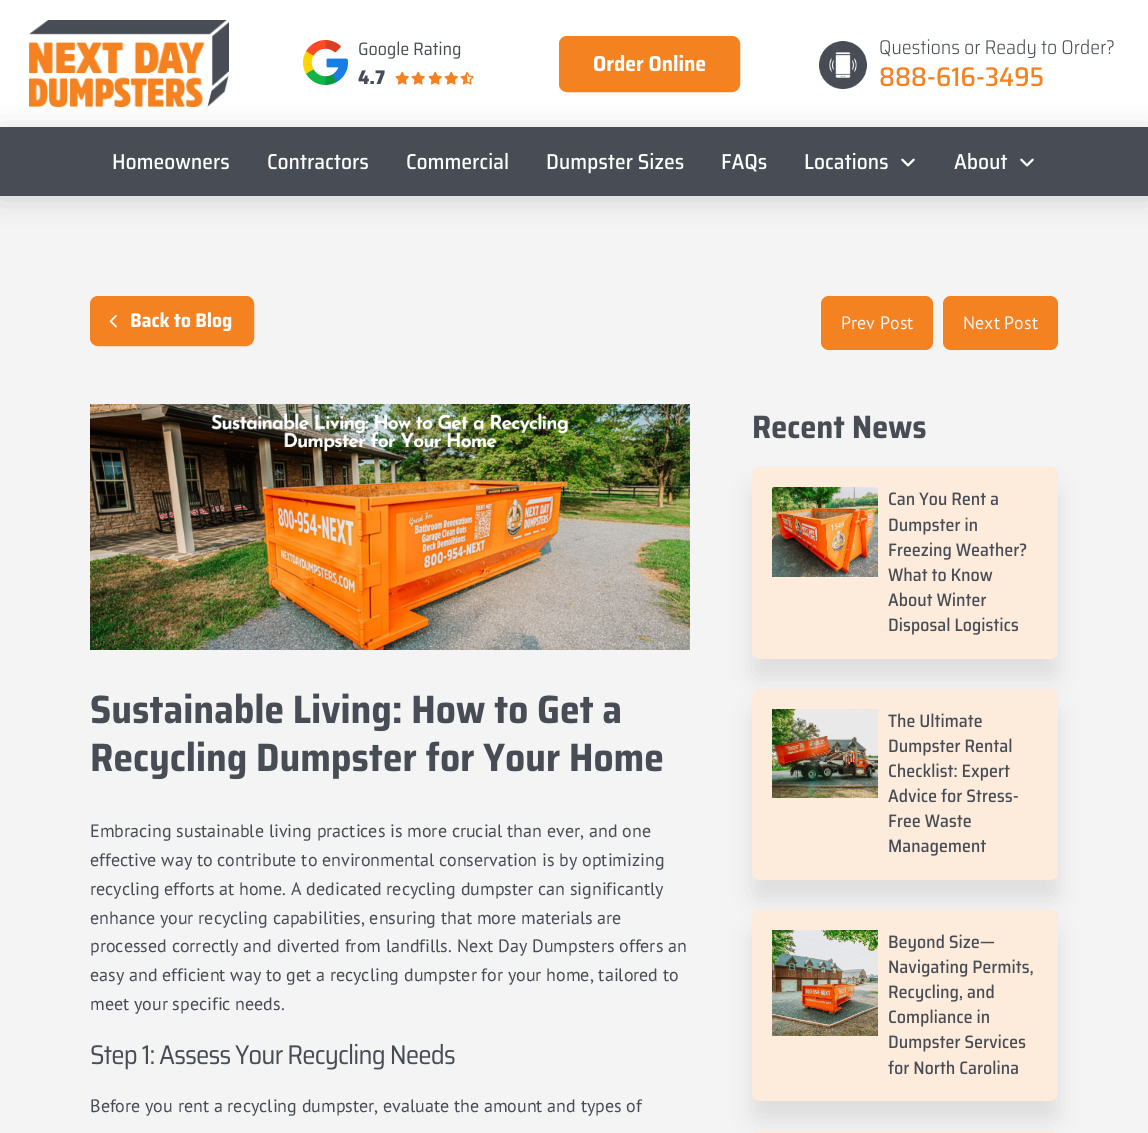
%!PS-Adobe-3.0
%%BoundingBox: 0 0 1148 1133
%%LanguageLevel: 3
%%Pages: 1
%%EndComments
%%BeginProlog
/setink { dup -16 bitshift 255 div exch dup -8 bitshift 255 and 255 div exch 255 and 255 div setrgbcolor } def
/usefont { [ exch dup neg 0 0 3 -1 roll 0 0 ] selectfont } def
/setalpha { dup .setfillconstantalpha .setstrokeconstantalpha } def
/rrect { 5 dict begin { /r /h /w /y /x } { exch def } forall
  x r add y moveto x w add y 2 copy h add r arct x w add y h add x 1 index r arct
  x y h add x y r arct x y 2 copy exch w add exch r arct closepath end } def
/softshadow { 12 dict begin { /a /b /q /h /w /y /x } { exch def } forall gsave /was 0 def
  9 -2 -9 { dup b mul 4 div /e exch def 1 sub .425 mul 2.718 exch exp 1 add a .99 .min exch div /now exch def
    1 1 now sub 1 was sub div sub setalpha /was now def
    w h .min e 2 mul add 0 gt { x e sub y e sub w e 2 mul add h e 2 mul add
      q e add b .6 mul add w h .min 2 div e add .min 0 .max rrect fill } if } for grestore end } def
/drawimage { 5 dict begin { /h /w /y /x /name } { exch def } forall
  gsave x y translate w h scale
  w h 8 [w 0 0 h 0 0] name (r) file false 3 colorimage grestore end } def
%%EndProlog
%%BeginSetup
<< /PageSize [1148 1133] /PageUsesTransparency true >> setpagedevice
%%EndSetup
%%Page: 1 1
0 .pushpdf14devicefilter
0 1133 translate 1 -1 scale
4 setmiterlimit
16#FFFFFF setink
0 0 1148 1133 rectfill
(img1.raw) 29 20 200 87 drawimage
(img2.raw) 303 40 45 45 drawimage
(img3.raw) 359 41 102 18 drawimage
(img4.raw) 358 70 27 14 drawimage
(img5.raw) 395 71 14 14 drawimage
(img5.raw) 411 71 14 14 drawimage
(img5.raw) 428 71 14 14 drawimage
(img5.raw) 444 71 14 14 drawimage
(img6.raw) 460 71 14 14 drawimage
16#F58220 setink
560 37 179 54 7 rrect gsave fill grestore
2 setlinewidth
stroke
(img7.raw) 594 54 112 18 drawimage
(img8.raw) 819 41 48 48 drawimage
(img9.raw) 880 39 234 19 drawimage
(img10.raw) 880 67 163 20 drawimage
16#F4F4F4 setink
0 196 1148 937 rectfill
16#000000 setink
0 130 1148 69 0 12.5 0.15 softshadow
16#474C55 setink
0 127 1148 69 rectfill
(img11.raw) 113 154 116 16 drawimage
(img12.raw) 268 154 100 16 drawimage
(img13.raw) 407 152 101 18 drawimage
(img14.raw) 547 152 137 22 drawimage
(img15.raw) 722 154 45 18 drawimage
(img16.raw) 805 152 83 18 drawimage
(img17.raw) 901 158 14 9 drawimage
(img18.raw) 954 152 54 18 drawimage
(img17.raw) 1020 158 14 9 drawimage
16#F58220 setink
91 297 162 48 7 rrect gsave fill grestore
stroke
(img19.raw) 109 315 8 13 drawimage
(img20.raw) 131 312 101 19 drawimage
821 296 112 54 8 rrect fill
/PTSans-Regular 18 usefont
16#F4F4F4 setink
841 329 moveto (Prev Post) show
16#F58220 setink
943 296 115 54 8 rrect fill
16#F4F4F4 setink
963 329 moveto (Next Post) show
(img21.raw) 90 404 600 246 drawimage
(img22.raw) 91 693 529 39 drawimage
(img23.raw) 92 741 571 39 drawimage
16#474C55 setink
[
    [(Embracing sustainable living practices is more crucial than ever, and one) 90 837]
    [(effective way to contribute to environmental conservation is by optimizing) 90 866]
    [(recycling efforts at home. A dedicated recycling dumpster can significantly) 90 895]
    [(enhance your recycling capabilities, ensuring that more materials are) 90 924]
    [(processed correctly and diverted from landfills. Next Day Dumpsters offers an) 90 952]
    [(easy and efficient way to get a recycling dumpster for your home, tailored to) 90 981]
    [(meet your specific needs.) 90 1010]
] { aload pop moveto show } forall
(img24.raw) 91 1043 364 27 drawimage
90 1112 moveto (Before you rent a recycling dumpster, evaluate the amount and types of) show
(img25.raw) 754 415 172 24 drawimage
16#21222B setink
752 487 306 192 8 10 0.1 softshadow
16#FDEBDB setink
752 467 306 192 8 rrect fill
(img26.raw) 772 487 106 90 drawimage
(img27.raw) 889 492 109 14 drawimage
(img28.raw) 889 517 88 18 drawimage
(img29.raw) 889 542 138 18 drawimage
(img30.raw) 888 567 105 15 drawimage
(img31.raw) 888 592 99 15 drawimage
(img32.raw) 889 617 129 18 drawimage
16#21222B setink
752 709 306 191 8 10 0.1 softshadow
16#FDEBDB setink
752 689 306 191 8 rrect fill
(img33.raw) 772 709 106 89 drawimage
(img34.raw) 888 713 94 15 drawimage
(img35.raw) 889 738 123 18 drawimage
(img36.raw) 889 763 121 18 drawimage
(img37.raw) 888 788 130 15 drawimage
(img38.raw) 889 814 82 14 drawimage
(img39.raw) 889 839 97 17 drawimage
16#21222B setink
752 930 306 191 8 10 0.1 softshadow
16#FDEBDB setink
752 910 306 191 8 rrect fill
(img40.raw) 772 930 106 106 drawimage
(img41.raw) 889 934 106 18 drawimage
(img42.raw) 889 959 144 18 drawimage
(img43.raw) 889 984 105 18 drawimage
(img44.raw) 889 1009 100 18 drawimage
(img45.raw) 889 1034 137 18 drawimage
(img46.raw) 888 1060 130 15 drawimage
752 1131 306 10 8 rrect fill
.poppdf14devicefilter showpage
%%EOF
